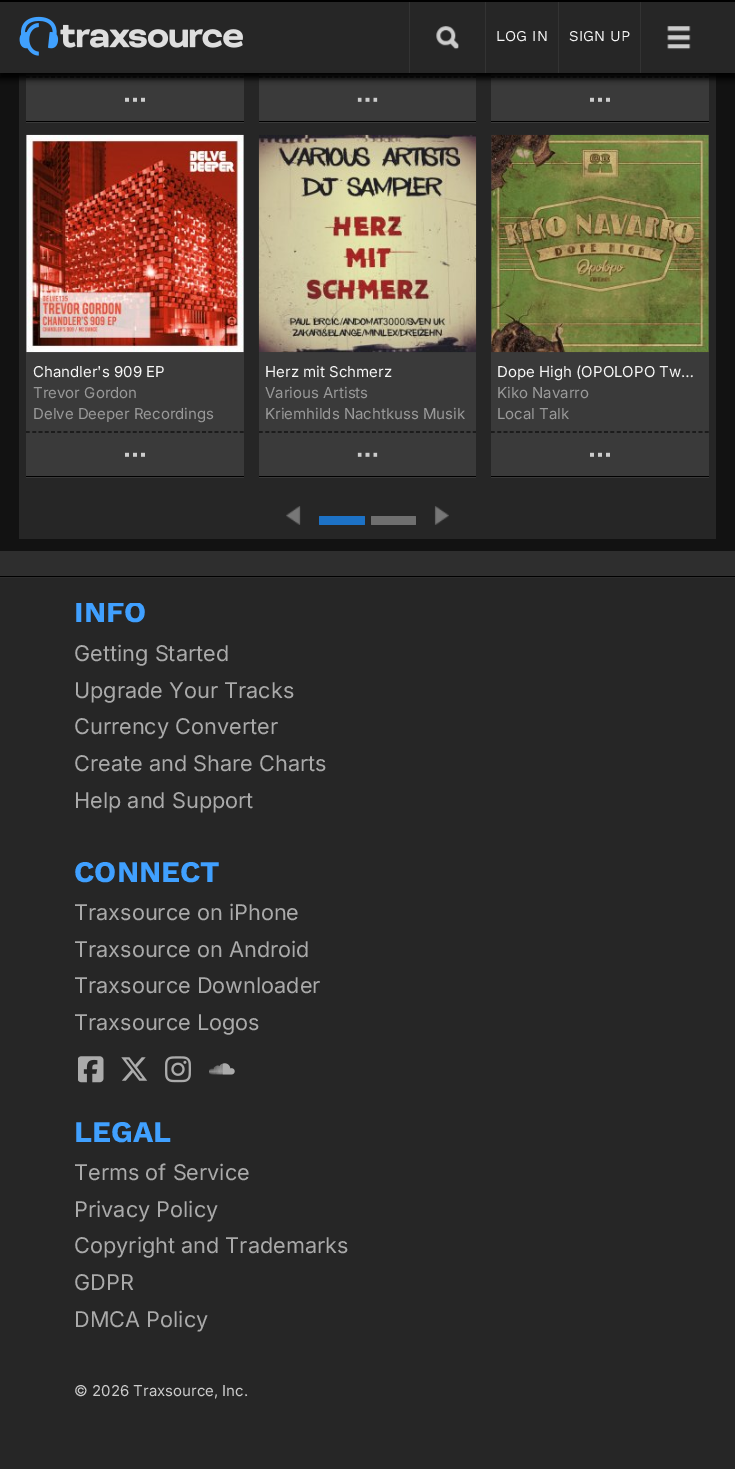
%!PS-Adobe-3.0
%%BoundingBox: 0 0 735 1469
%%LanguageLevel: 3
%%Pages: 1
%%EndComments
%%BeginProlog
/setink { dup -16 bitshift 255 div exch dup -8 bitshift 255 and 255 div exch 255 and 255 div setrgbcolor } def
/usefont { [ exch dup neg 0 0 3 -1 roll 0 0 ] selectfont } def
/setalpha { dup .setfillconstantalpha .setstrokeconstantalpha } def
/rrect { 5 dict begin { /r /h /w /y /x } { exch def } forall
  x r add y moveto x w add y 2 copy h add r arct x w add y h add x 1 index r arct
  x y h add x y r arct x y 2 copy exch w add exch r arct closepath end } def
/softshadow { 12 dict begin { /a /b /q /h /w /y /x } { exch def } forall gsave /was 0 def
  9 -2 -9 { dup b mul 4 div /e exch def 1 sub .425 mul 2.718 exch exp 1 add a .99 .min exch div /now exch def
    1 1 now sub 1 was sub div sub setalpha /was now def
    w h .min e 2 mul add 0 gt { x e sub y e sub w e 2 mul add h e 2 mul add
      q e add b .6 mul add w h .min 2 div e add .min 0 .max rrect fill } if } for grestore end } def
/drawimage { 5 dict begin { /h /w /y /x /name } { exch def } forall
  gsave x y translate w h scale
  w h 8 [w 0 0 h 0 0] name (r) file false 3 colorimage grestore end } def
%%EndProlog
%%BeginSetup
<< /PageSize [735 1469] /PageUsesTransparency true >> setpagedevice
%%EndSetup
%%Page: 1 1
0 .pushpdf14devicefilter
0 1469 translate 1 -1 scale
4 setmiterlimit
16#121212 setink
0 0 735 1469 rectfill
16#262626 setink
19 73 697 466 rectfill
16#3A3A3A setink
26 73 218 50 rectfill
16#111111 setink
1.2 setlinewidth
[3.75 2.54] 0 setdash
26 77 moveto 244 77 lineto stroke
16#3A3A3A setink
259 73 217 50 rectfill
16#111111 setink
259 77 moveto 476 77 lineto stroke
16#3A3A3A setink
491 73 218 50 rectfill
16#111111 setink
491 77 moveto 709 77 lineto stroke
16#000000 setink
-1 4 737 75 0 3 1 softshadow
[
    [0 2 735 71 16#262626]
    [409 0 1 73 16#333333]
    [485 0 1 73 16#333333]
    [558 0 1 73 16#333333]
    [640 0 1 73 16#333333]
    [0 0 735 2 16#000000]
] { aload pop setink rectfill } forall
(img1.raw) 19 16 224 40 drawimage
(img2.raw) 436 26 23 24 drawimage
/WorkSans-Regular 15 usefont
16#F6F6F6 setink
496 41 moveto (LOG IN) show
569 41 moveto (SIGN UP) show
(img3.raw) 667 26 24 24 drawimage
16#000000 setink
26 121 218 1 rectfill
(img4.raw) 125 97 20 5 drawimage
259 121 217 1 rectfill
(img5.raw) 357 97 21 5 drawimage
491 121 218 1 rectfill
(img4.raw) 590 97 20 5 drawimage
16#3A3A3A setink
26 135 218 343 rectfill
(img6.raw) 26 134 218 219 drawimage
/Inter-Regular 15 usefont
16#F6F6F6 setink
33 377 moveto (Chandler's 909 EP) show
16#999999 setink
33 398 moveto (Trevor Gordon) show
33 419 moveto (Delve Deeper Recordings) show
16#111111 setink
26 432 moveto 244 432 lineto stroke
16#000000 setink
26 476 218 1 rectfill
(img4.raw) 125 452 20 5 drawimage
16#3A3A3A setink
259 352 217 126 rectfill
(img7.raw) 258 134 219 219 drawimage
16#F6F6F6 setink
265 377 moveto (Herz mit Schmerz) show
16#999999 setink
265 398 moveto (Various Artists) show
265 419 moveto (Kriemhilds Nachtkuss Musik) show
16#111111 setink
259 432 moveto 476 432 lineto stroke
16#000000 setink
259 476 217 1 rectfill
(img5.raw) 357 452 21 5 drawimage
16#3A3A3A setink
491 135 218 343 rectfill
(img8.raw) 491 134 218 219 drawimage
16#F6F6F6 setink
497 377 moveto (Dope High \(OPOLOPO Tw…) show
16#999999 setink
497 398 moveto (Kiko Navarro) show
497 419 moveto (Local Talk) show
16#111111 setink
491 432 moveto 709 432 lineto stroke
16#000000 setink
491 476 218 1 rectfill
(img4.raw) 590 452 20 5 drawimage
(img9.raw) 286 506 15 19 drawimage
16#1D72C6 setink
319 516 46 9 1 rrect fill
16#6F6F6F setink
371 516 45 9 1 rrect fill
(img10.raw) 434 506 15 19 drawimage
[
    [0 578 735 891 16#262626]
    [0 551 735 27 16#2E2E2E]
    [0 576 735 1 16#000000]
] { aload pop setink rectfill } forall
gsave
36 603 663 842 rectclip
/WorkSans-Bold 30 usefont
16#40A0FF setink
74 622 moveto (INFO) show
grestore
/Inter-Regular 21.7 usefont
16#AAAAAA setink
[
    [(Getting Started) 74 661]
    [(Upgrade Your Tracks) 74 698]
    [(Currency Converter) 74 734]
    [(Create and Share Charts) 74 771]
    [(Help and Support) 74 808]
] { aload pop moveto show } forall
/WorkSans-Bold 30 usefont
16#40A0FF setink
74 882 moveto (CONNECT) show
/Inter-Regular 21.7 usefont
16#AAAAAA setink
[
    [(Traxsource on iPhone) 74 920]
    [(Traxsource on Android) 74 957]
    [(Traxsource Downloader) 74 993]
    [(Traxsource Logos) 74 1030]
] { aload pop moveto show } forall
(img11.raw) 78 1056 26 27 drawimage
(img12.raw) 121 1057 27 24 drawimage
(img13.raw) 165 1056 26 27 drawimage
(img14.raw) 209 1063 26 12 drawimage
/WorkSans-Bold 30 usefont
16#40A0FF setink
74 1142 moveto (LEGAL) show
/Inter-Regular 21.7 usefont
16#AAAAAA setink
[
    [(Terms of Service) 74 1180]
    [(Privacy Policy) 74 1217]
    [(Copyright and Trademarks) 74 1253]
    [(GDPR) 74 1290]
    [(DMCA Policy) 74 1327]
] { aload pop moveto show } forall
/Inter-Regular 15 usefont
16#CCCCCC setink
74 1396 moveto (© 2026 Traxsource, Inc.) show
.poppdf14devicefilter showpage
%%EOF
